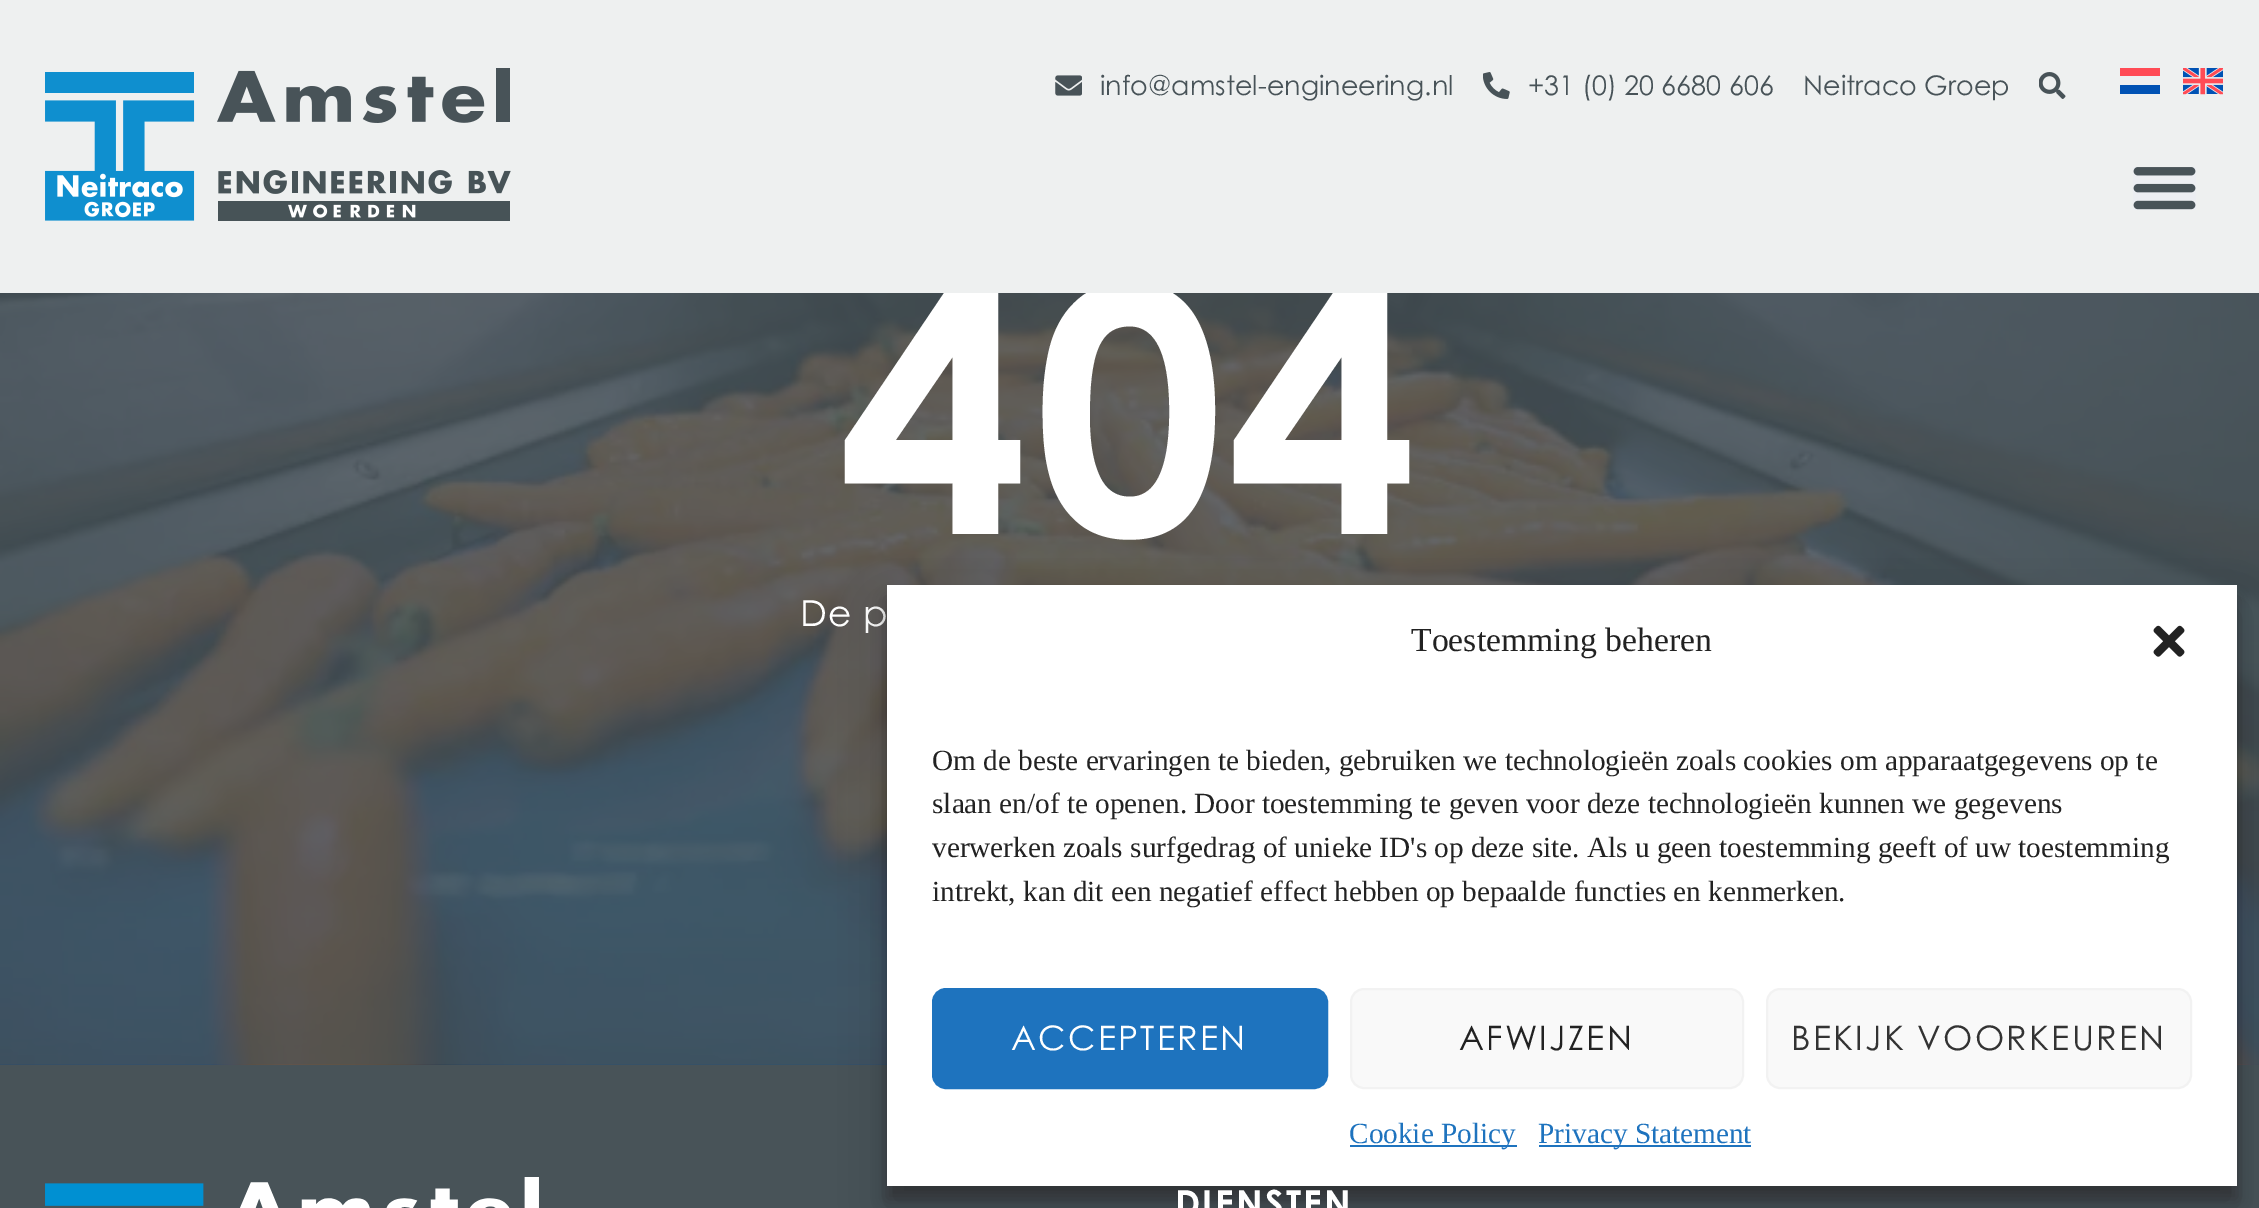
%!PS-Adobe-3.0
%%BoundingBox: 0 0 2259 1208
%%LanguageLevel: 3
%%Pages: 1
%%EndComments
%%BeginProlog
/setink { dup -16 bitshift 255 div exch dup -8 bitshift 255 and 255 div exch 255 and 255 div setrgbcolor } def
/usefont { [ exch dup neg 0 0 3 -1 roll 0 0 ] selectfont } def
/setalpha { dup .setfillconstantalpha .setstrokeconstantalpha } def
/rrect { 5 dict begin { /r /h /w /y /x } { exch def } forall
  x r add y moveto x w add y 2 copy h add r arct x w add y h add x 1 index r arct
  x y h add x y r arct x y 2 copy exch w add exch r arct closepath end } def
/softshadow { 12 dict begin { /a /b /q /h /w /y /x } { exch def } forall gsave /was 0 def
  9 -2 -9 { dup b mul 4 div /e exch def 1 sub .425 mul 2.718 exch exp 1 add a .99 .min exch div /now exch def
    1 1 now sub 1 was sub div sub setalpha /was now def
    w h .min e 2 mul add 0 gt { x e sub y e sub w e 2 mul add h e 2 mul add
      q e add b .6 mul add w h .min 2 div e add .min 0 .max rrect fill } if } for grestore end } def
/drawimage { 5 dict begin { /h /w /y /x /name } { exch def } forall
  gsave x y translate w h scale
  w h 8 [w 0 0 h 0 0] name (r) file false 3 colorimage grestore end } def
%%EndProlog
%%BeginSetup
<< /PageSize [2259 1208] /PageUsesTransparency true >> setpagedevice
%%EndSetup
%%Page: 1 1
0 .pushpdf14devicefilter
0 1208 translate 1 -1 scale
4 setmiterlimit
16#485358 setink
0 0 2259 1208 rectfill
(img7.raw) 0 293 2259 772 drawimage
/CenturyGothic-Bold 344 usefont
16#FFFFFF setink
838 534 moveto 2 0 (404) ashow
16#EEF0F0 setink
0 0 2259 293 rectfill
(img1.raw) 45 68 466 153 drawimage
(img2.raw) 1055 75 27 21 drawimage
/CenturyGothic-Regular 27 usefont
16#485358 setink
1100 95 moveto (info@amstel-engineering.nl) show
(img3.raw) 1483 72 27 27 drawimage
1528 95 moveto (+31 \(0\) 20 6680 606) show
1803 95 moveto (Neitraco Groep) show
(img4.raw) 2039 72 27 27 drawimage
16#FF4B55 setink
2120 68 40 8 rectfill
16#0052B4 setink
2120 85 40 9 rectfill
(img5.raw) 2183 68 40 27 drawimage
(img6.raw) 2133 167 63 43 drawimage
/CenturyGothic-Regular 36 usefont
16#FFFFFF setink
800 626 moveto 1 0 (De p) ashow
16#000000 setink
887 599 1350 600 0 7 0.23 softshadow
887 608 1350 600 0 22.5 0.19 softshadow
16#FFFFFF setink
887 585 1350 601 rectfill
/LiberationSerif-Regular 33.75 usefont
16#222222 setink
1411 651 moveto (Toestemming beheren) show
(img8.raw) 2153 625 32 32 drawimage
/LiberationSerif-Regular 29.25 usefont
[
    [(Om de beste ervaringen te bieden, gebruiken we technologieën zoals cookies om apparaatgegevens op te) 932 770]
    [(slaan en/of te openen. Door toestemming te geven voor deze technologieën kunnen we gegevens) 932 813]
    [(verwerken zoals surfgedrag of unieke ID's op deze site. Als u geen toestemming geeft of uw toestemming) 932 857]
    [(intrekt, kan dit een negatief effect hebben op bepaalde functies en kenmerken.) 932 901]
] { aload pop moveto show } forall
16#1E73BE setink
933 989 394 99 13 rrect gsave fill grestore
2 setlinewidth
stroke
/CenturyGothic-Regular 33.75 usefont
16#FFFFFF setink
1011 1050 moveto 2.25 0 (ACCEPTEREN) ashow
16#F9F9F9 setink
1351 989 392 99 13 rrect gsave fill grestore
16#F2F2F2 setink
stroke
16#222222 setink
1459 1050 moveto 2.25 0 (AFWIJZEN) ashow
16#F9F9F9 setink
1767 989 424 99 13 rrect gsave fill grestore
16#F2F2F2 setink
stroke
16#333333 setink
1791 1050 moveto 2.25 0 (BEKIJK VOORKEUREN) ashow
16#1E73BE setink
1350 1145 167 2 rectfill
/LiberationSerif-Regular 29.25 usefont
1349 1143 moveto (Cookie Policy) show
1539 1145 212 2 rectfill
1538 1143 moveto (Privacy Statement) show
(img9.raw) 45 1177 494 31 drawimage
/CenturyGothic-Bold 36 usefont
16#FFFFFF setink
1175 1216 moveto 2.25 0 (DIENSTEN) ashow
.poppdf14devicefilter showpage
%%EOF
